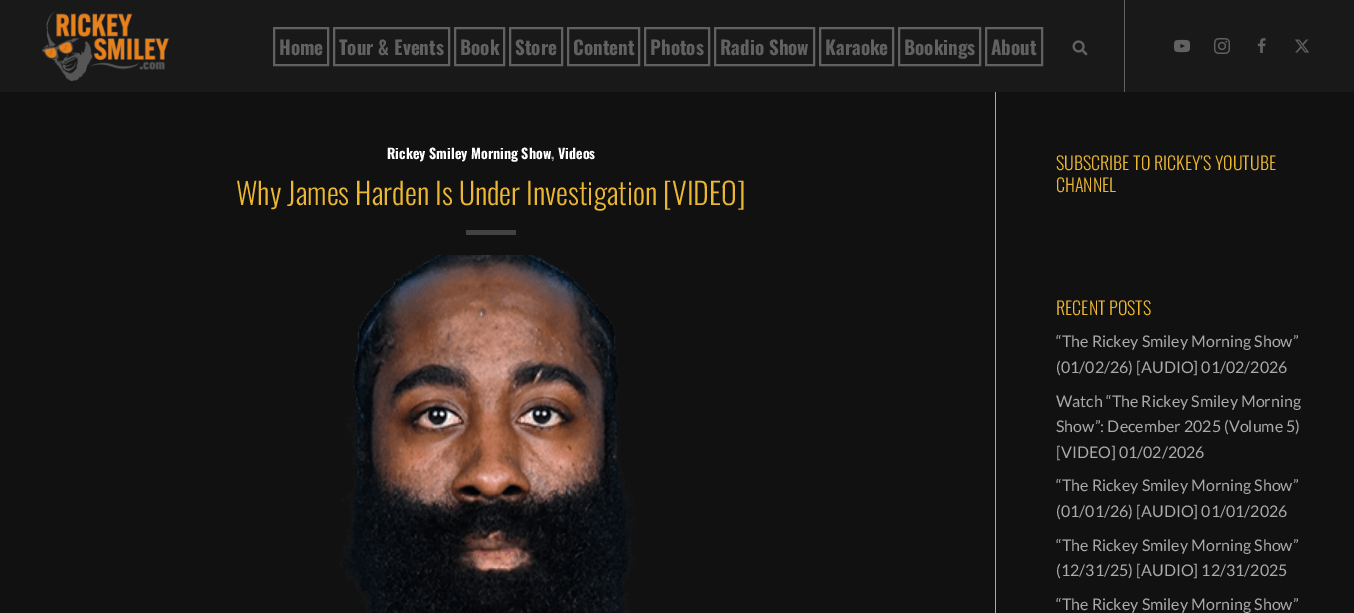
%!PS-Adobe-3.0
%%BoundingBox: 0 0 1354 613
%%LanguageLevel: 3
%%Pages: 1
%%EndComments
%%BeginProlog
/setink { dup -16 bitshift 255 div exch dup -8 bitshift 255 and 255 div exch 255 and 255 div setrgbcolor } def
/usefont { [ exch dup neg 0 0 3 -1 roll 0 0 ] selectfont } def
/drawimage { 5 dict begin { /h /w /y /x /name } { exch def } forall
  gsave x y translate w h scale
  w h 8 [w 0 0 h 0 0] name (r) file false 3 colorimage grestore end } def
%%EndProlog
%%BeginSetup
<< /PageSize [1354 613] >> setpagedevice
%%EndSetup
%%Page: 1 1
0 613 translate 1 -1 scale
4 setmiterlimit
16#111111 setink
0 0 1354 613 rectfill
16#191919 setink
0 0 1354 92 rectfill
(img1.raw) 42 11 127 70 drawimage
16#616161 setink
2 setlinewidth
274 28 54 37 rectstroke
/Oswald-Bold 19 usefont
279 55 moveto (Home) show
334 28 115 37 rectstroke
339 55 moveto (Tour & Events) show
455 28 49 37 rectstroke
460 55 moveto (Book) show
510 28 52 37 rectstroke
515 55 moveto (Store) show
568 28 71 37 rectstroke
573 55 moveto (Content) show
645 28 64 37 rectstroke
650 55 moveto (Photos) show
715 28 99 37 rectstroke
720 55 moveto (Radio Show) show
820 28 73 37 rectstroke
825 55 moveto (Karaoke) show
899 28 81 37 rectstroke
904 55 moveto (Bookings) show
986 28 56 37 rectstroke
991 55 moveto (About) show
1124 0 1 92 rectfill
(img2.raw) 1072 40 16 16 drawimage
(img3.raw) 1174 39 16 14 drawimage
(img4.raw) 1214 38 16 16 drawimage
(img5.raw) 1257 38 9 15 drawimage
(img6.raw) 1295 39 14 14 drawimage
16#AAAAAA setink
995 92 1 521 rectfill
/Oswald-Bold 14 usefont
16#FFFFFF setink
387 159 moveto (Rickey Smiley Morning Show) show
16#AAAAAA setink
551 159 moveto (,) show
16#FFFFFF setink
558 159 moveto (Videos) show
/Oswald-Light 30 usefont
16#ECB732 setink
236 205 moveto (Why James Harden Is Under Investigation [VIDEO]) show
16#424242 setink
466 230 50 5 rectfill
(img7.raw) 339 255 297 358 drawimage
/Oswald-Light 18 usefont
16#ECB732 setink
[
    [(SUBSCRIBE TO RICKEY’S YOUTUBE) 1056 170]
    [(CHANNEL) 1056 192]
    [(RECENT POSTS) 1056 315]
] { aload pop moveto show } forall
/Lato-Regular 16 usefont
16#AAAAAA setink
[
    [(“The Rickey Smiley Morning Show”) 1056 347]
    [(\(01/02/26\) [AUDIO] 01/02/2026) 1056 373]
    [(Watch “The Rickey Smiley Morning) 1056 407]
    [(Show”: December 2025 \(Volume 5\)) 1056 432]
    [([VIDEO] 01/02/2026) 1056 458]
    [(“The Rickey Smiley Morning Show”) 1056 491]
    [(\(01/01/26\) [AUDIO] 01/01/2026) 1056 517]
    [(“The Rickey Smiley Morning Show”) 1056 551]
    [(\(12/31/25\) [AUDIO] 12/31/2025) 1056 576]
    [(“The Rickey Smiley Morning Show”) 1056 610]
] { aload pop moveto show } forall
showpage
%%EOF
